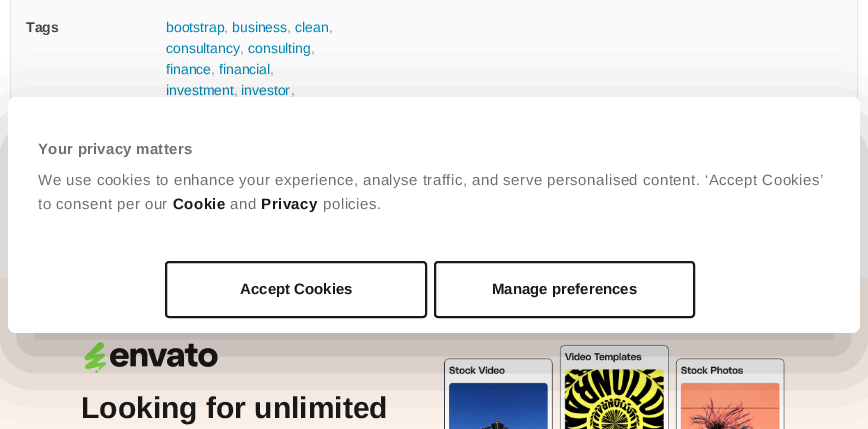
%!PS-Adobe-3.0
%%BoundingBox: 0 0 868 429
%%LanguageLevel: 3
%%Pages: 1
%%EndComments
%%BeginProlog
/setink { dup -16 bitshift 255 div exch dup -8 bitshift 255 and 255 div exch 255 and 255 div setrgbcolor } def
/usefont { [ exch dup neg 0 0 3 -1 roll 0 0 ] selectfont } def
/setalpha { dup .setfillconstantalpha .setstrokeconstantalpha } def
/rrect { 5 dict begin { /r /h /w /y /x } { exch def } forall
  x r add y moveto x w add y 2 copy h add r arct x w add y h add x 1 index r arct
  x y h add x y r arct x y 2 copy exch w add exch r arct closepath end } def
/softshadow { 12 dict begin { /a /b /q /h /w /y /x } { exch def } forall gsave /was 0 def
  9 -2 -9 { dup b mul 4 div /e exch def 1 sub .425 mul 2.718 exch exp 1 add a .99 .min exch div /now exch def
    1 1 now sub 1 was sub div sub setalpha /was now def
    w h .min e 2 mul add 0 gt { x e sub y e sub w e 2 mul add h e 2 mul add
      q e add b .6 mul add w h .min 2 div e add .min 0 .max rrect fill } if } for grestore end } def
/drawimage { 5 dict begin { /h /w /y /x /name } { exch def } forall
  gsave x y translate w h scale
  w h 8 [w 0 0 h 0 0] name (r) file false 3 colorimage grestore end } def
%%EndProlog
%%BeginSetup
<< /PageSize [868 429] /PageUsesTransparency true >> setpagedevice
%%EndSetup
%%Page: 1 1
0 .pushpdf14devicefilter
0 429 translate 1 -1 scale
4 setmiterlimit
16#FFFFFF setink
0 0 868 429 rectfill
16#FAFAFA setink
11 0 846 99 rectfill
16#E1E8ED setink
10.5 -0.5 847 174 rectstroke
/LiberationSans-Bold 14 usefont
16#454545 setink
26 32 moveto (Tags) show
/LiberationSans-Regular 14 usefont
16#0084B4 setink
166 32 moveto (bootstrap) show
16#999999 setink
224 32 moveto (,) show
16#0084B4 setink
232 32 moveto (business) show
16#999999 setink
287 32 moveto (,) show
16#0084B4 setink
295 32 moveto (clean) show
16#999999 setink
329 32 moveto (,) show
16#0084B4 setink
166 53 moveto (consultancy) show
16#999999 setink
240 53 moveto (,) show
16#0084B4 setink
248 53 moveto (consulting) show
16#999999 setink
311 53 moveto (,) show
16#0084B4 setink
166 74 moveto (finance) show
16#999999 setink
211 74 moveto (,) show
16#0084B4 setink
219 74 moveto (financial) show
16#999999 setink
270 74 moveto (,) show
16#0084B4 setink
166 95 moveto (investment) show
16#999999 setink
234 95 moveto (,) show
16#0084B4 setink
241 95 moveto (investor) show
16#999999 setink
291 95 moveto (,) show
16#FFF5ED setink
0 278 868 151 rectfill
(img1.raw) 84 342 134 31 drawimage
/LiberationSans-Bold 30 usefont
16#191919 setink
81 418 moveto (Looking for unlimited) show
(img2.raw) 444 344 341 85 drawimage
16#000000 setink
8 129 852 236 8 34 0.3 softshadow
16#FFFFFF setink
8 97 852 236 8 rrect fill
/LiberationSans-Bold 15 usefont
16#707070 setink
38 154 moveto 0.25 0 (Your privacy matters) ashow
/LiberationSans-Regular 15 usefont
38 185 moveto 0.5 0 (We use cookies to enhance your experience, analyse traffic, and serve personalised content. ‘Accept Cookies’) ashow
38 209 moveto 0.5 0 (to consent per our) ashow
/LiberationSans-Bold 15 usefont
16#191919 setink
173 209 moveto 0.5 0 (Cookie) ashow
/LiberationSans-Regular 15 usefont
16#707070 setink
230 209 moveto 0.5 0 (and) ashow
/LiberationSans-Bold 15 usefont
16#191919 setink
261 209 moveto 0.5 0 (Privacy) ashow
/LiberationSans-Regular 15 usefont
16#707070 setink
323 209 moveto 0.5 0 (policies.) ashow
16#191919 setink
2 setlinewidth
166 262 260 55 3 rrect stroke
/LiberationSans-Bold 15 usefont
240 294 moveto (Accept Cookies) show
435 262 259 55 3 rrect stroke
492 294 moveto (Manage preferences) show
.poppdf14devicefilter showpage
%%EOF
